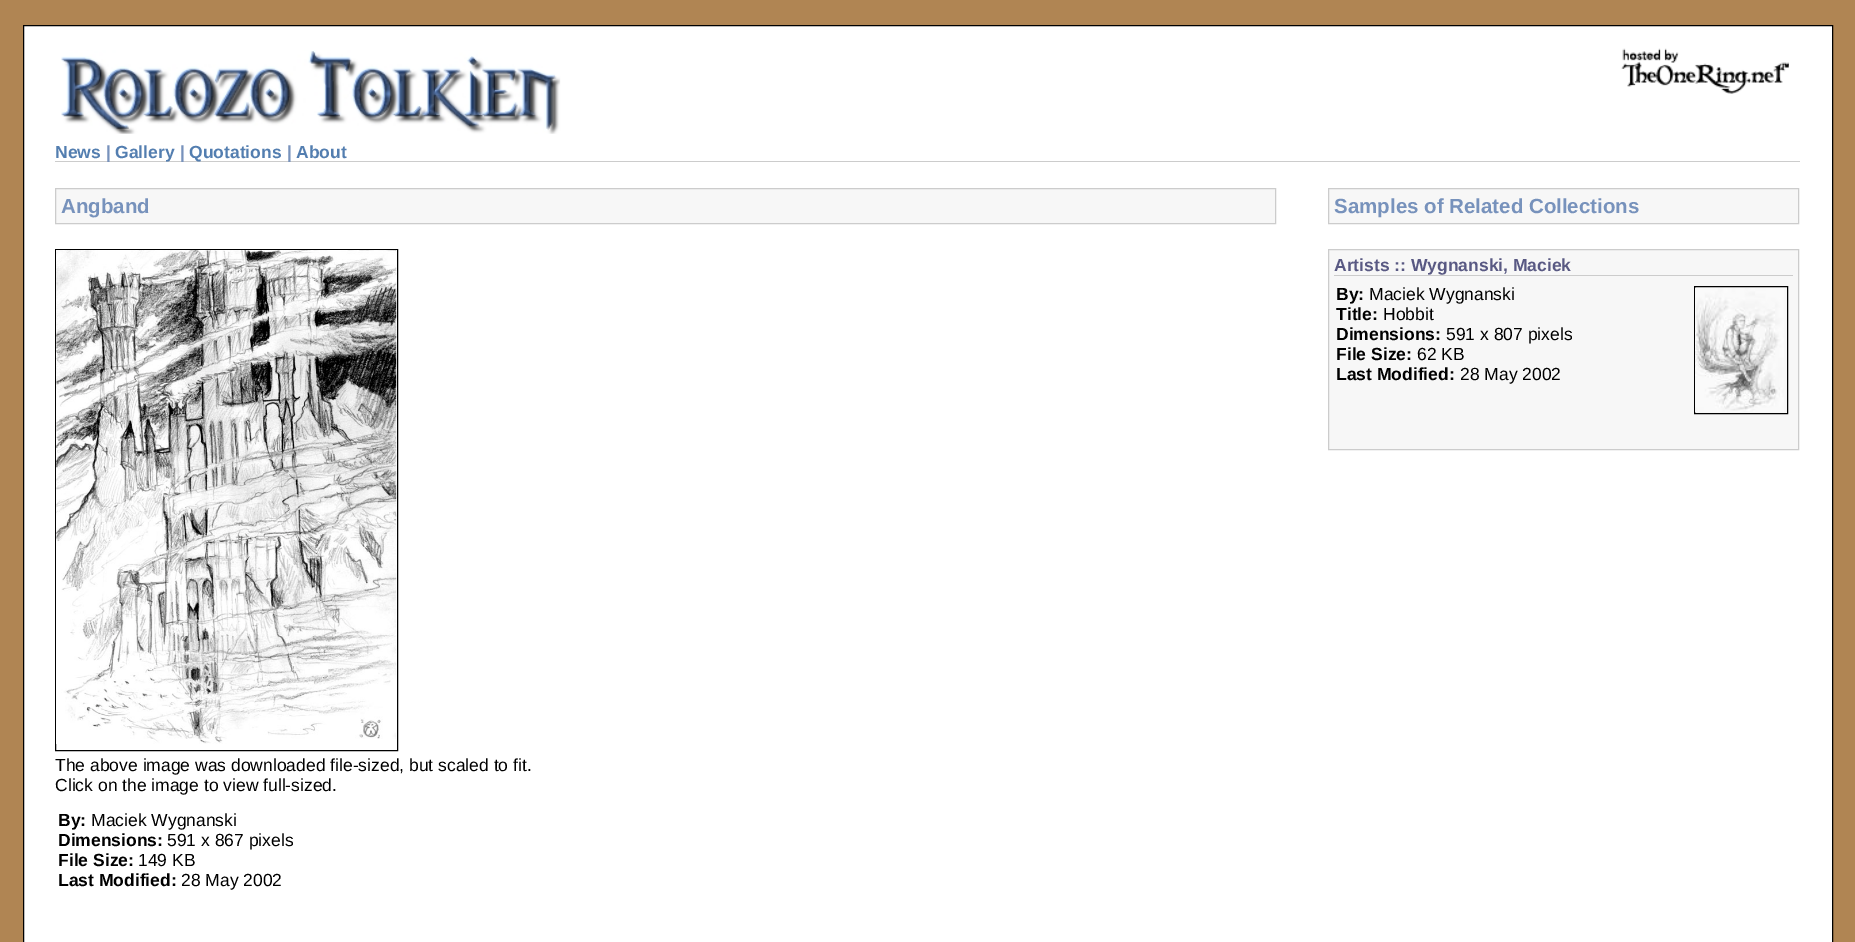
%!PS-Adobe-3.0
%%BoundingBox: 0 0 1855 942
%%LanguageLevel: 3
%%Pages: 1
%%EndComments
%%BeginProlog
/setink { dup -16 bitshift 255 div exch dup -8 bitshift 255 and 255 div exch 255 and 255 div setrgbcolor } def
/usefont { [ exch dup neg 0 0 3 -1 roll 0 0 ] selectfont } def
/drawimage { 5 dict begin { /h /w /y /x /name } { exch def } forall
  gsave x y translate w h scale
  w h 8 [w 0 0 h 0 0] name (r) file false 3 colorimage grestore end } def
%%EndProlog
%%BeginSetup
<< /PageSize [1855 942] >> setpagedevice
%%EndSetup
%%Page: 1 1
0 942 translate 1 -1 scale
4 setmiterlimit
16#B08553 setink
0 0 1855 942 rectfill
16#FFFFFF setink
23.5 25.5 moveto 1832.5 25.5 lineto 1832.5 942.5 lineto 23.5 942.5 lineto closepath gsave fill grestore
16#000000 setink
stroke
(img1.raw) 61 50 500 84 drawimage
(img2.raw) 1621 48 168 46 drawimage
16#CCCCCC setink
55 161 1745 1 rectfill
/LiberationSans-Bold 17.5 usefont
16#537EB0 setink
55 158 moveto (News) show
16#7792BC setink
106 158 moveto (|) show
16#537EB0 setink
115 158 moveto (Gallery) show
16#7792BC setink
180 158 moveto (|) show
16#537EB0 setink
189 158 moveto (Quotations) show
16#7792BC setink
287 158 moveto (|) show
16#537EB0 setink
296 158 moveto (About) show
16#F7F7F7 setink
55.5 188.5 moveto 1275.5 188.5 lineto 1275.5 223.5 lineto 55.5 223.5 lineto closepath gsave fill grestore
16#CCCCCC setink
stroke
/LiberationSans-Bold 20.5 usefont
16#7792BC setink
61 213 moveto (Angband) show
16#000000 setink
55.5 249.5 342 501 rectstroke
(img3.raw) 56 250 341 494 drawimage
/LiberationSans-Regular 17.5 usefont
55 771 moveto (The above image was downloaded file-sized, but scaled to fit.) show
55 791 moveto (Click on the image to view full-sized.) show
/LiberationSans-Bold 17.5 usefont
58 826 moveto (By:) show
/LiberationSans-Regular 17.5 usefont
91 826 moveto (Maciek Wygnanski) show
/LiberationSans-Bold 17.5 usefont
58 846 moveto (Dimensions:) show
/LiberationSans-Regular 17.5 usefont
167 846 moveto (591 x 867 pixels) show
/LiberationSans-Bold 17.5 usefont
58 866 moveto (File Size:) show
/LiberationSans-Regular 17.5 usefont
138 866 moveto (149 KB) show
/LiberationSans-Bold 17.5 usefont
58 886 moveto (Last Modified:) show
/LiberationSans-Regular 17.5 usefont
181 886 moveto (28 May 2002) show
16#F7F7F7 setink
1328.5 188.5 moveto 1798.5 188.5 lineto 1798.5 223.5 lineto 1328.5 223.5 lineto closepath gsave fill grestore
16#CCCCCC setink
stroke
/LiberationSans-Bold 20.5 usefont
16#7792BC setink
1334 213 moveto (Samples of Related Collections) show
16#F7F7F7 setink
1328.5 249.5 moveto 1798.5 249.5 lineto 1798.5 449.5 lineto 1328.5 449.5 lineto closepath gsave fill grestore
16#CCCCCC setink
stroke
1334 275 459 1 rectfill
/LiberationSans-Bold 17.5 usefont
16#595983 setink
1334 271 moveto (Artists :: Wygnanski, Maciek) show
16#000000 setink
1336 300 moveto (By:) show
/LiberationSans-Regular 17.5 usefont
1369 300 moveto (Maciek Wygnanski) show
/LiberationSans-Bold 17.5 usefont
1336 320 moveto (Title:) show
/LiberationSans-Regular 17.5 usefont
1383 320 moveto (Hobbit) show
/LiberationSans-Bold 17.5 usefont
1336 340 moveto (Dimensions:) show
/LiberationSans-Regular 17.5 usefont
1446 340 moveto (591 x 807 pixels) show
/LiberationSans-Bold 17.5 usefont
1336 360 moveto (File Size:) show
/LiberationSans-Regular 17.5 usefont
1417 360 moveto (62 KB) show
/LiberationSans-Bold 17.5 usefont
1336 380 moveto (Last Modified:) show
/LiberationSans-Regular 17.5 usefont
1460 380 moveto (28 May 2002) show
1694.5 286.5 93 127 rectstroke
(img4.raw) 1695 288 89 124 drawimage
showpage
%%EOF
